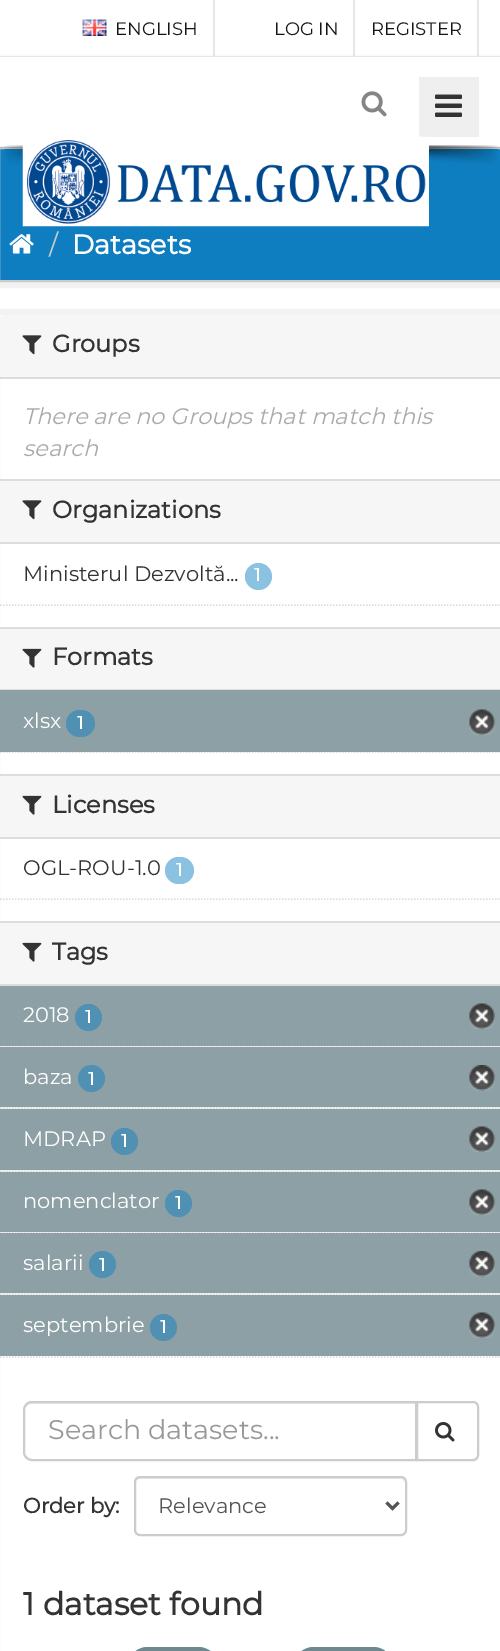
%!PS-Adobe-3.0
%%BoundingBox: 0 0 500 1651
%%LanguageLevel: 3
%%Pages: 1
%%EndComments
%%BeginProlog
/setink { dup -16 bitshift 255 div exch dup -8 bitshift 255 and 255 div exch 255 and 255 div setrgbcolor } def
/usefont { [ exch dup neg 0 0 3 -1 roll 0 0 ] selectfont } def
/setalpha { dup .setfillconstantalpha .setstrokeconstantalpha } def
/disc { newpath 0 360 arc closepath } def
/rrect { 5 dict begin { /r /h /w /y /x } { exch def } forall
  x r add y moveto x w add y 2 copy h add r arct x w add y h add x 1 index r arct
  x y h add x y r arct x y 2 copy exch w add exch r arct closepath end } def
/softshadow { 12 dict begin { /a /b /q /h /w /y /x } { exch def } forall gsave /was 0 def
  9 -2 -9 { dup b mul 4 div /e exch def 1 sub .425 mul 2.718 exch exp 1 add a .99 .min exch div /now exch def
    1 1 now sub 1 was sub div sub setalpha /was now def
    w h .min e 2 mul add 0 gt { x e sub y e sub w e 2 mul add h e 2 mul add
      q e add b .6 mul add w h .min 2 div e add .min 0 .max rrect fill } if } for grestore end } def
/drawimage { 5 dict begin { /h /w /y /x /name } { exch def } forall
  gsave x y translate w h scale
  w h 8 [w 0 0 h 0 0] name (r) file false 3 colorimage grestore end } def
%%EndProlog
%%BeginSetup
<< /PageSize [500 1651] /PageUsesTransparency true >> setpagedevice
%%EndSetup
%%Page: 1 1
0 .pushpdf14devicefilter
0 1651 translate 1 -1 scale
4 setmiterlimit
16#FFFFFF setink
0 0 500 1651 rectfill
16#F2F2F2 setink
0 56 500 1 rectfill
16#E6E6E6 setink
213 0 2 56 rectfill
(img1.raw) 82 19 25 17 drawimage
/Montserrat-Thin 18 usefont
16#151515 setink
115 35 moveto (ENGLISH) show
16#E6E6E6 setink
353 0 2 56 rectfill
16#151515 setink
274 35 moveto (LOG IN) show
16#E6E6E6 setink
477 0 2 56 rectfill
16#151515 setink
371 35 moveto (REGISTER) show
0.05 setalpha
16#000000 setink
6 setlinewidth
-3 144 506 141 rectstroke
1 setalpha
16#0E7EC1 setink
-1 148 moveto 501 148 lineto 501 281 lineto -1 281 lineto closepath gsave fill grestore
16#CCCCCC setink
2 setlinewidth
stroke
16#000000 setink
0 57 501 90 0 1.5 0.1 softshadow
16#FFFFFF setink
0 57 500 90 rectfill
0.05 setalpha
16#000000 setink
0 146 500 2 rectfill
1 setalpha
(img2.raw) 361 91 26 26 drawimage
16#EFEFEF setink
419 77 60 60 rectfill
(img3.raw) 435 94 27 23 drawimage
(img5.raw) 4 145 494 20 drawimage
(img4.raw) 22 136 407 91 drawimage
(img6.raw) 9 234 25 20 drawimage
/Montserrat-Thin 27 usefont
16#CCCCCC setink
49 254 moveto (/) show
/Montserrat-Bold 27 usefont
16#FFFFFF setink
72 254 moveto (Datasets) show
16#F2F2F2 setink
6 setlinewidth
-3 312 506 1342 rectstroke
16#F6F6F6 setink
5 315 moveto 500 315 lineto 500 378 lineto 0 378 lineto 0 320 lineto 0 317 2 315 5 315 curveto closepath fill
16#DDDDDD setink
0 377 500 2 rectfill
(img7.raw) 22 335 20 20 drawimage
/Montserrat-Bold 24 usefont
16#333333 setink
52 352 moveto (Groups) show
/Montserrat-ThinItalic 22.5 usefont
16#AAAAAA setink
23 424 moveto (There are no Groups that match this) show
23 456 moveto (search) show
[
    [0 481 500 61 16#F6F6F6]
    [0 479 500 2 16#DDDDDD]
    [0 542 500 2 16#DDDDDD]
] { aload pop setink rectfill } forall
(img7.raw) 22 500 20 20 drawimage
/Montserrat-Bold 24 usefont
16#333333 setink
52 518 moveto (Organizations) show
/Montserrat-Thin 21 usefont
23 581 moveto (Ministerul Dezvoltă...) show
16#8BC1E1 setink
258.5 576.5 13.5 disc fill
/Montserrat-Bold 18 usefont
16#FFFFFF setink
254 581 moveto (1) show
16#DDDDDD setink
1.5 setlinewidth
[1.5 1.5] 0 setdash
0 605 moveto 499.5 605 lineto stroke
[
    [0 629 500 60 16#F6F6F6]
    [0 627 500 2 16#DDDDDD]
    [0 689 500 1 16#DDDDDD]
] { aload pop setink rectfill } forall
(img8.raw) 22 648 20 20 drawimage
/Montserrat-Bold 24 usefont
16#333333 setink
52 665 moveto (Formats) show
16#DDDDDD setink
0 752 moveto 499.5 752 lineto stroke
16#8CA0A6 setink
0 690 500 62 rectfill
/Montserrat-Thin 21 usefont
16#FFFFFF setink
23 728 moveto (xlsx) show
16#5090B3 setink
66 710 29 27 13.5 rrect fill
/Montserrat-Bold 18 usefont
16#FFFFFF setink
77 729 moveto (1) show
(img9.raw) 469 709 26 26 drawimage
[
    [0 776 500 61 16#F6F6F6]
    [0 774 500 2 16#DDDDDD]
    [0 837 500 2 16#DDDDDD]
] { aload pop setink rectfill } forall
(img8.raw) 22 795 20 20 drawimage
/Montserrat-Bold 24 usefont
16#333333 setink
52 813 moveto (Licenses) show
/Montserrat-Thin 21 usefont
23 875 moveto (OGL-ROU-1.0) show
16#8BC1E1 setink
165 857 29 27 13.5 rrect fill
/Montserrat-Bold 18 usefont
16#FFFFFF setink
176 876 moveto (1) show
16#DDDDDD setink
0 899 moveto 499.5 899 lineto stroke
[
    [0 923 500 61 16#F6F6F6]
    [0 921 500 2 16#DDDDDD]
    [0 984 500 2 16#DDDDDD]
] { aload pop setink rectfill } forall
(img8.raw) 22 942 20 20 drawimage
/Montserrat-Bold 24 usefont
16#333333 setink
52 960 moveto (Tags) show
16#F6F6F6 setink
0 1046 500 1 rectfill
16#DDDDDD setink
0 1046 moveto 499.5 1046 lineto stroke
16#8CA0A6 setink
0 986 500 60 rectfill
/Montserrat-Thin 21 usefont
16#FFFFFF setink
23 1022 moveto (2018) show
16#5090B3 setink
88.5 1017.5 13.5 disc fill
/Montserrat-Bold 18 usefont
16#FFFFFF setink
85 1023 moveto (1) show
(img9.raw) 469 1003 26 26 drawimage
16#F6F6F6 setink
0 1107 500 2 rectfill
16#DDDDDD setink
0 1108 moveto 499.5 1108 lineto stroke
16#8CA0A6 setink
0 1047 500 60 rectfill
/Montserrat-Thin 21 usefont
16#FFFFFF setink
23 1084 moveto (baza) show
16#5090B3 setink
91.5 1078.5 13.5 disc fill
/Montserrat-Bold 18 usefont
16#FFFFFF setink
88 1085 moveto (1) show
(img10.raw) 469 1065 26 26 drawimage
16#F6F6F6 setink
0 1170 500 2 rectfill
16#DDDDDD setink
0 1171 moveto 499.5 1171 lineto stroke
16#8CA0A6 setink
0 1109 500 61 rectfill
/Montserrat-Thin 21 usefont
16#FFFFFF setink
23 1146 moveto (MDRAP) show
16#5090B3 setink
124.5 1141.5 13.5 disc fill
/Montserrat-Bold 18 usefont
16#FFFFFF setink
121 1147 moveto (1) show
(img9.raw) 469 1126 26 26 drawimage
16#F6F6F6 setink
0 1232 500 1 rectfill
16#DDDDDD setink
0 1232 moveto 499.5 1232 lineto stroke
16#8CA0A6 setink
0 1172 500 60 rectfill
/Montserrat-Thin 21 usefont
16#FFFFFF setink
23 1208 moveto (nomenclator) show
16#5090B3 setink
178.5 1203.5 13.5 disc fill
/Montserrat-Bold 18 usefont
16#FFFFFF setink
175 1209 moveto (1) show
(img9.raw) 469 1189 26 26 drawimage
16#F6F6F6 setink
0 1293 500 2 rectfill
16#DDDDDD setink
0 1294 moveto 499.5 1294 lineto stroke
16#8CA0A6 setink
0 1233 500 60 rectfill
/Montserrat-Thin 21 usefont
16#FFFFFF setink
23 1270 moveto (salarii) show
16#5090B3 setink
102.5 1264.5 13.5 disc fill
/Montserrat-Bold 18 usefont
16#FFFFFF setink
99 1271 moveto (1) show
(img10.raw) 469 1251 26 26 drawimage
16#8CA0A6 setink
0 1295 500 61 rectfill
/Montserrat-Thin 21 usefont
16#FFFFFF setink
23 1332 moveto (septembrie) show
16#5090B3 setink
163.5 1327.5 13.5 disc fill
/Montserrat-Bold 18 usefont
16#FFFFFF setink
160 1333 moveto (1) show
(img9.raw) 469 1312 26 26 drawimage
16#DDDDDD setink
0 1357 moveto 499.5 1357 lineto stroke
16#ECECEC setink
32 1404 moveto 416 1404 lineto 416 1403 lineto 32 1403 lineto 28 1403 24 1407 24 1411 curveto 24 1412 lineto 24 1407 27 1404 32 1404 curveto closepath fill
16#CCCCCC setink
2 setlinewidth
[] 0 setdash
32 1402 moveto 416 1402 lineto 416 1460 lineto 32 1460 lineto 27.5 1460 24 1456.5 24 1452 curveto 24 1410 lineto 24 1405.5 27.5 1402 32 1402 curveto closepath stroke
/Montserrat-Thin 27 usefont
16#999999 setink
48 1439 moveto (Search datasets...) show
16#FFFFFF setink
417 1402 moveto 473 1402 lineto 476 1402 478 1404 478 1407 curveto 478 1455 lineto 478 1458 476 1460 473 1460 curveto 417 1460 lineto closepath gsave fill grestore
16#CCCCCC setink
stroke
(img11.raw) 435 1422 20 20 drawimage
/Montserrat-Bold 21 usefont
16#333333 setink
23 1513 moveto (Order by:) show
16#ECECEC setink
140 1479 moveto 400 1479 lineto 403 1479 405 1481 405 1484 curveto 405 1481 403 1478 400 1478 curveto 140 1478 lineto 137 1478 135 1481 135 1484 curveto 135 1481 137 1479 140 1479 curveto closepath fill
16#CCCCCC setink
135 1477 271 58 5 rrect stroke
16#555555 setink
3 setlinewidth
386.5 1502.5 moveto 392.5 1508.5 lineto 398.5 1502.5 lineto stroke
/Montserrat-Thin 21 usefont
158 1513 moveto (Relevance) show
/Montserrat-Bold 31.5 usefont
16#333333 setink
23 1615 moveto (1 dataset found) show
16#6F8890 setink
128 1647 90 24 19.5 rrect fill
294 1647 99 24 19.5 rrect fill
.poppdf14devicefilter showpage
%%EOF
